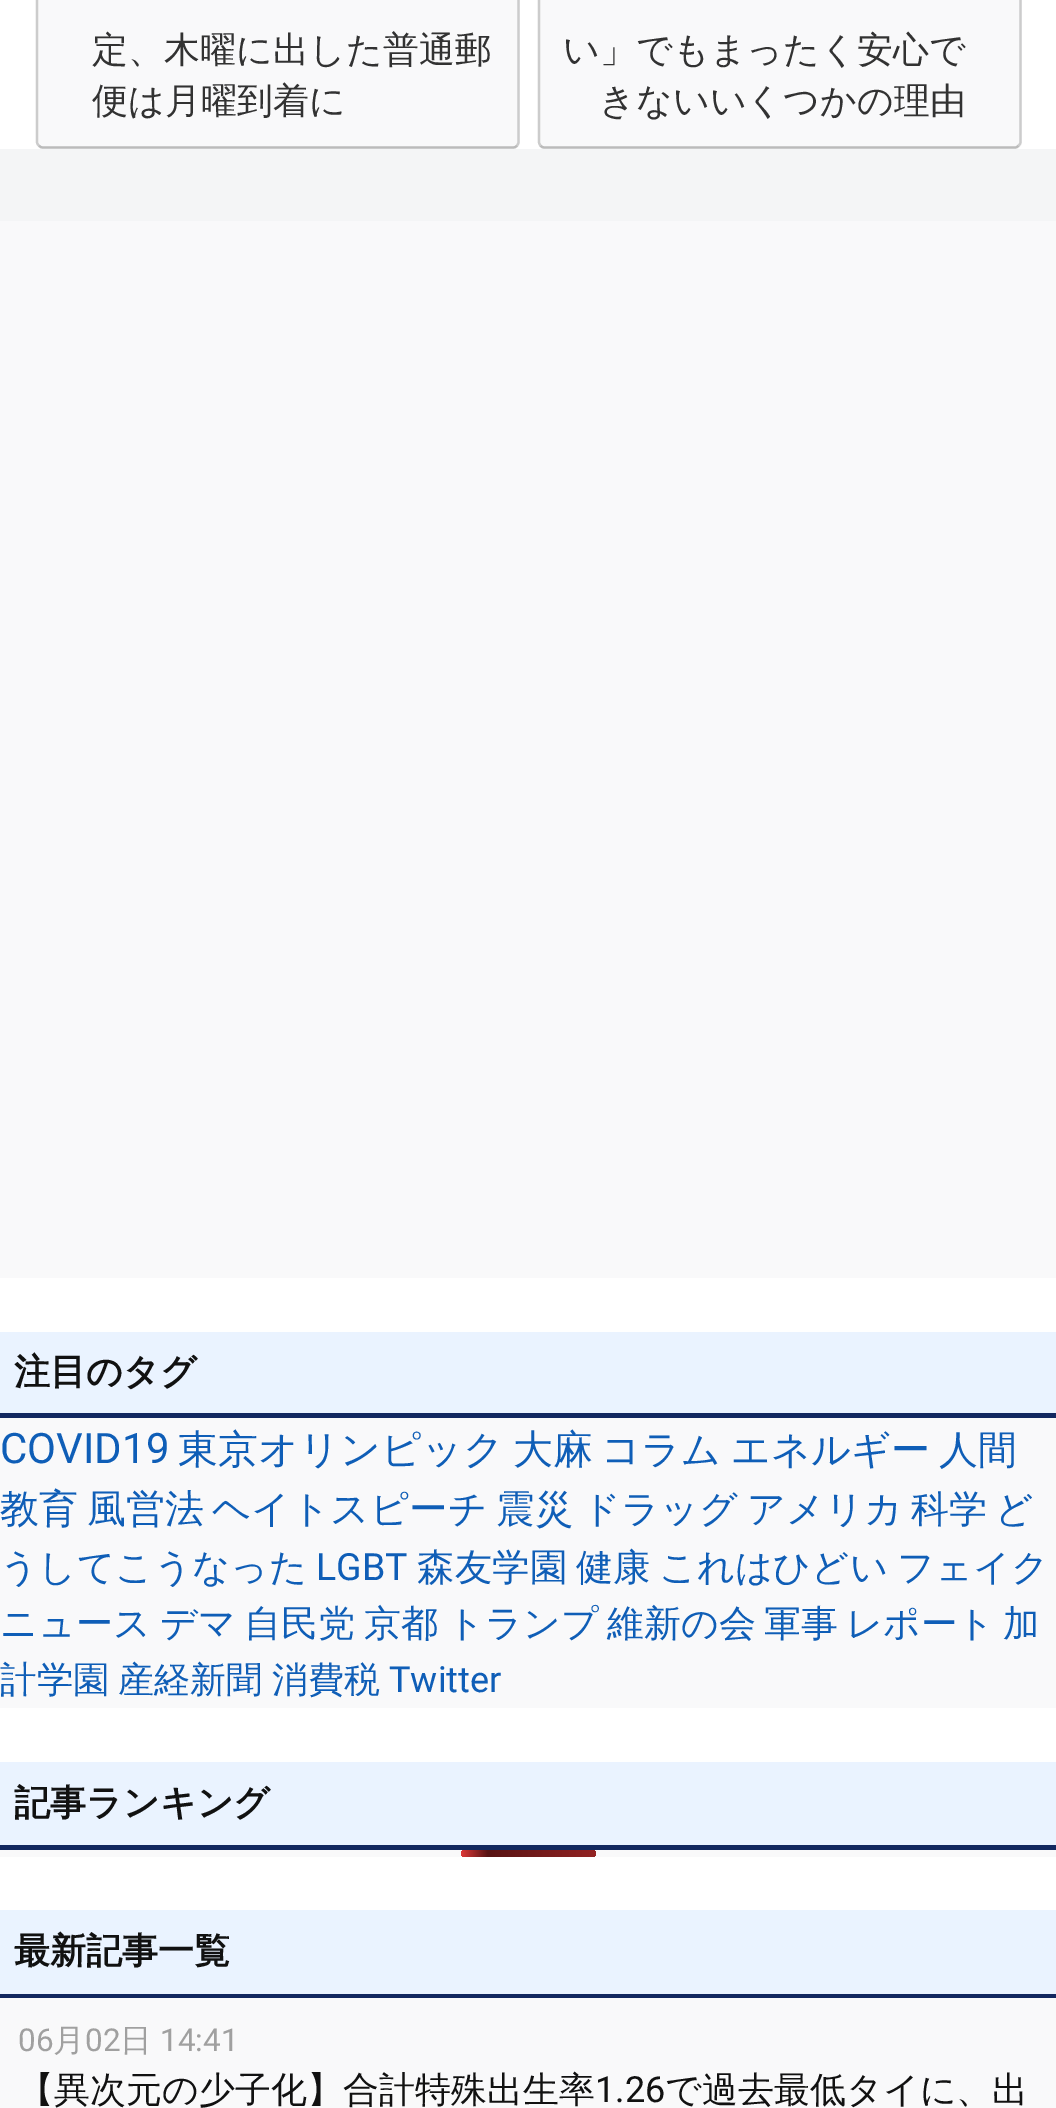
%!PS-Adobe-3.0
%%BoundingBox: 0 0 1056 2108
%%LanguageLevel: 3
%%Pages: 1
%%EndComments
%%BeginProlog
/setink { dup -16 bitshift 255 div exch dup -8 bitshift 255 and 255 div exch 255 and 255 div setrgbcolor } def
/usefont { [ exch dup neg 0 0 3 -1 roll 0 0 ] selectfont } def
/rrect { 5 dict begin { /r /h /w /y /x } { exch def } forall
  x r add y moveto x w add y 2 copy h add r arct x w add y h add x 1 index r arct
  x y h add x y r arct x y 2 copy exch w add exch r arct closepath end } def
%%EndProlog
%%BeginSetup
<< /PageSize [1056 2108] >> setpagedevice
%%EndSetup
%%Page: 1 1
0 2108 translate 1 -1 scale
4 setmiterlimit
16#F4F5F6 setink
0 0 1056 2108 rectfill
16#FFFFFF setink
0 0 1056 149 rectfill
16#F9F9FA setink
36 -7 484 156 7 rrect fill
16#BBBBBB setink
2.2 setlinewidth
517 145.5 moveto 516 147 514.5 147.5 513 147.5 curveto 43 147.5 lineto 41.5 147.5 40 147 39 145.5 curveto stroke
16#CCCCCC setink
39 145.5 moveto 37.5 144.5 37 143 37 142 curveto 37 -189 lineto 37 -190.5 37.5 -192 39 -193 curveto 40 -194 41.5 -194.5 43 -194.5 curveto 513 -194.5 lineto 514.5 -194.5 516 -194 517 -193 curveto 518 -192 518.5 -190.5 518.5 -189 curveto 518.5 142 lineto 518.5 143 518 144.5 517 145.5 curveto stroke
/WenQuanYiZenHei-Medium 36 usefont
16#323232 setink
92 62 moveto (定、木曜に出した普通郵) show
92 113 moveto (便は月曜到着に) show
16#F9F9FA setink
538 -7 484 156 7 rrect fill
16#BBBBBB setink
1018.5 145.5 moveto 1017.5 147 1016 147.5 1015 147.5 curveto 544.5 147.5 lineto 543 147.5 541.5 147 540.5 145.5 curveto stroke
16#CCCCCC setink
540.5 145.5 moveto 539.5 144.5 539 143 539 142 curveto 539 -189 lineto 539 -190.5 539.5 -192 540.5 -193 curveto 541.5 -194 543 -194.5 544.5 -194.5 curveto 1015 -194.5 lineto 1016 -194.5 1017.5 -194 1018.5 -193 curveto 1020 -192 1020.5 -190.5 1020.5 -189 curveto 1020.5 142 lineto 1020.5 143 1020 144.5 1018.5 145.5 curveto stroke
16#323232 setink
563 62 moveto (い」でもまったく安心で) show
599 113 moveto (きないいくつかの理由) show
[
    [0 1278 1056 632 16#FFFFFF]
    [0 221 1056 1057 16#F9F9FA]
    [0 1418 1056 290 16#F9F9FA]
    [0 1332 1056 81 16#EAF3FF]
    [0 1413 1056 5 16#122860]
] { aload pop setink rectfill } forall
/WenQuanYiZenHei-Bold 36 usefont
16#111111 setink
14 1384 moveto (注目のタグ) show
/Roboto-Regular 42 usefont
16#0F5EB7 setink
0 1463 moveto (COVID19) show
/WenQuanYiZenHei-Medium 40 usefont
178 1463 moveto (東京オリンピック) show
513 1463 moveto (大麻) show
/WenQuanYiZenHei-Medium 39 usefont
[
    [(コラム) 601 1463]
    [(エネルギー) 731 1463]
    [(人間) 939 1463]
    [(教育) 0 1522]
    [(風営法) 87 1522]
] { aload pop moveto show } forall
/WenQuanYiZenHei-Medium 38.5 usefont
212 1522 moveto (ヘイトスピーチ) show
496 1522 moveto (震災) show
/WenQuanYiZenHei-Medium 38 usefont
[
    [(ドラッグ) 582 1522]
    [(アメリカ) 747 1522]
    [(科学) 911 1522]
] { aload pop moveto show } forall
/WenQuanYiZenHei-Medium 37.5 usefont
995 1522 moveto (ど) show
0 1580 moveto (うしてこうなった) show
/Roboto-Regular 37.5 usefont
316 1580 moveto (LGBT) show
/WenQuanYiZenHei-Medium 37.5 usefont
417 1580 moveto (森友学園) show
/WenQuanYiZenHei-Medium 37.25 usefont
576 1580 moveto (健康) show
659 1580 moveto (これはひどい) show
/WenQuanYiZenHei-Medium 37 usefont
[
    [(フェイク) 897 1580]
    [(ニュース) 0 1636]
    [(デマ) 160 1636]
    [(自民党) 244 1636]
    [(京都) 364 1636]
    [(トランプ) 447 1636]
    [(維新の会) 607 1636]
    [(軍事) 764 1636]
] { aload pop moveto show } forall
/WenQuanYiZenHei-Medium 36.5 usefont
[
    [(レポート) 846 1636]
    [(加) 1003 1636]
    [(計学園) 0 1692]
] { aload pop moveto show } forall
/WenQuanYiZenHei-Medium 36 usefont
118 1692 moveto (産経新聞) show
272 1692 moveto (消費税) show
/Roboto-Regular 36 usefont
389 1692 moveto (Twitter) show
16#EAF3FF setink
0 1762 1056 83 rectfill
16#122860 setink
0 1845 1056 5 rectfill
/WenQuanYiZenHei-Bold 36 usefont
16#111111 setink
14 1815 moveto (記事ランキング) show
16#F9F9FA setink
0 1850 1056 7 rectfill
gsave 461 1850 135 7 3.5 rrect clip newpath
<< /ShadingType 2 /ColorSpace /DeviceRGB /Coords [461 1853 731 1853] /Extend [true true] /Function << /FunctionType 3 /Domain [0 1] /Functions [<< /FunctionType 2 /Domain [0 1] /C0 [0.867 0.216 0.216] /C1 [0.341 0.075 0.075] /N 1 >> << /FunctionType 2 /Domain [0 1] /C0 [0.341 0.075 0.075] /C1 [0.867 0.216 0.216] /N 1 >>] /Bounds [0.1] /Encode [0 1 0 1] >> >> shfill grestore
16#EAF3FF setink
0 1910 1056 84 rectfill
16#122860 setink
0 1994 1056 4 rectfill
16#111111 setink
14 1963 moveto (最新記事一覧) show
16#F9F9FA setink
0 1998 1056 110 rectfill
/Roboto-Regular 31.5 usefont
16#A0A0A0 setink
18 2051 moveto (06) show
/WenQuanYiZenHei-Medium 31.5 usefont
53 2051 moveto (月) show
/Roboto-Regular 31.5 usefont
85 2051 moveto (02) show
/WenQuanYiZenHei-Medium 31.5 usefont
120 2051 moveto (日) show
/Roboto-Regular 31.5 usefont
160 2051 moveto (14:41) show
/WenQuanYiZenHei-Medium 36 usefont
16#111111 setink
18 2102 moveto (【異次元の少子化】合計特殊出生率) show
/Roboto-Regular 36 usefont
595 2102 moveto (1.26) show
/WenQuanYiZenHei-Medium 36 usefont
665 2102 moveto (で過去最低タイに、出) show
showpage
%%EOF
